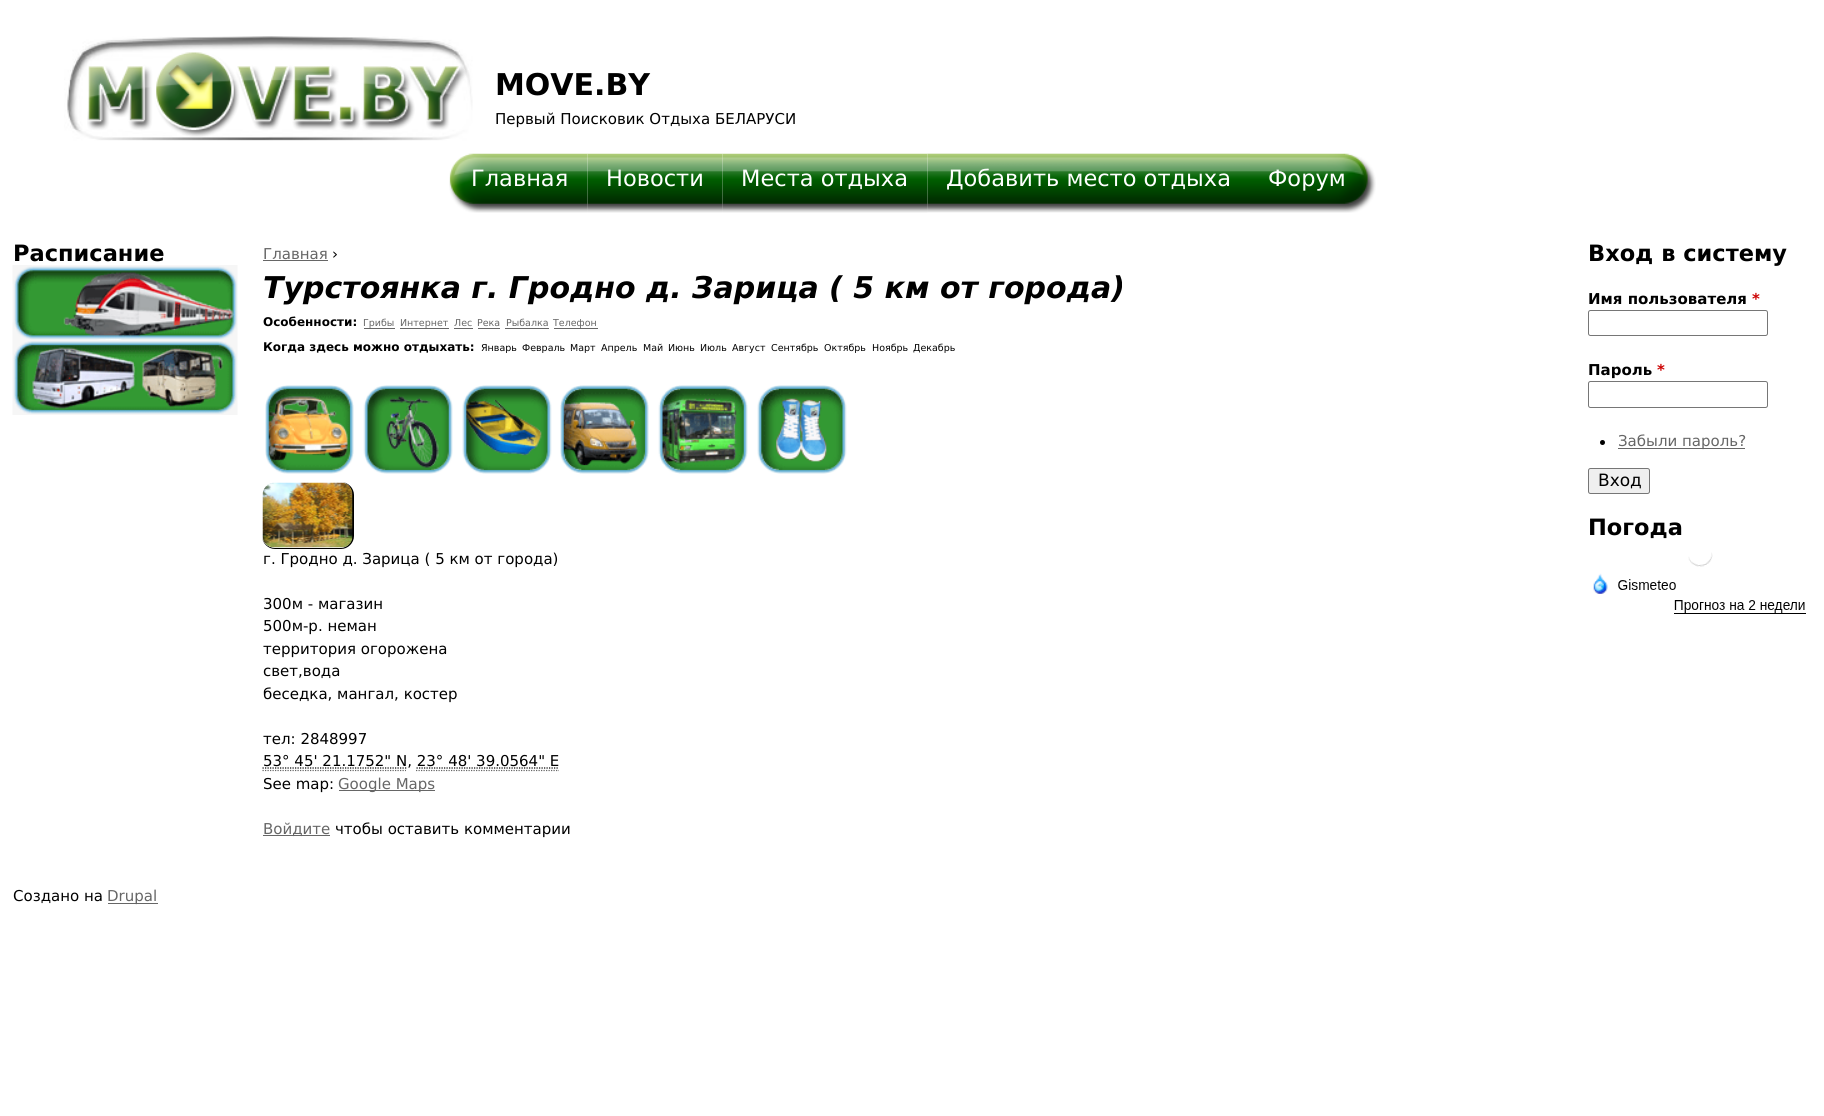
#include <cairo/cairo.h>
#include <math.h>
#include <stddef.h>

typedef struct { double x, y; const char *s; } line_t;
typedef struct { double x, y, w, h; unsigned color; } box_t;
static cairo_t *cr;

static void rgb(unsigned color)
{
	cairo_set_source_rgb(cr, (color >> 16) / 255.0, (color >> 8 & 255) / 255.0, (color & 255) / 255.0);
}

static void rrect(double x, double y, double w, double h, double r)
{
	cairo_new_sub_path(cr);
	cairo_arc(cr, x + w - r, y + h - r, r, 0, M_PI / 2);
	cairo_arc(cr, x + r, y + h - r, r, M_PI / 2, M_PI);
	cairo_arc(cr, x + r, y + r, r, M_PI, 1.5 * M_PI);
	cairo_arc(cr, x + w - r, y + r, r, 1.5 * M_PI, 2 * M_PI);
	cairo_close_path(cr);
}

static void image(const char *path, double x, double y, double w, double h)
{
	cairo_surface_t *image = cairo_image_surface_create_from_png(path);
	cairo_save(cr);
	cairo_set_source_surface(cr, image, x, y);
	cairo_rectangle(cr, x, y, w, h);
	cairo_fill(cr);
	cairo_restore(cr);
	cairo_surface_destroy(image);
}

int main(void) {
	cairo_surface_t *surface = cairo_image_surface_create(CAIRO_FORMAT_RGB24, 1824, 1116);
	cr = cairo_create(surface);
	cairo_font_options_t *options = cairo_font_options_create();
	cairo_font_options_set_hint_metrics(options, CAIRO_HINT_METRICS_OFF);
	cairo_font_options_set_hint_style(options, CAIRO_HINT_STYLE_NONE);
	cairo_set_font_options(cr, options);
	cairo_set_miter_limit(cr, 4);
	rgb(0xffffff);
	cairo_paint(cr);
	image("img/1.png", 64, 36, 409, 105);
	image("img/2.png", 87, 52, 380, 85);
	image("img/3.png", 449, 153, 139, 60);
	image("img/4.png", 587, 153, 136, 60);
	image("img/5.png", 722, 153, 206, 60);
	image("img/6.png", 927, 153, 323, 60);
	image("img/7.png", 1250, 153, 126, 60);
	image("img/8.png", 12, 265, 226, 75);
	image("img/9.png", 12, 340, 226, 75);
	{
		static const box_t items[] = {
			{263, 260, 65, 1, 0x666666},
			{364, 328, 31, 1, 0x666666},
			{400, 328, 49, 1, 0x666666},
			{454, 328, 19, 1, 0x666666},
			{478, 328, 22, 1, 0x666666},
			{505, 328, 44, 1, 0x666666},
			{554, 328, 44, 1, 0x666666},
		};
		for (size_t i = 0; i < sizeof items / sizeof *items; i++) {
			rgb(items[i].color);
			cairo_rectangle(cr, items[i].x, items[i].y, items[i].w, items[i].h);
			cairo_fill(cr);
		}
	}
	image("img/10.png", 265, 385, 89, 89);
	image("img/11.png", 363, 385, 90, 89);
	image("img/12.png", 462, 385, 90, 89);
	image("img/13.png", 560, 385, 89, 89);
	image("img/14.png", 658, 385, 90, 89);
	image("img/15.png", 757, 385, 90, 89);
	rgb(0x000000);
	cairo_set_fill_rule(cr, CAIRO_FILL_RULE_EVEN_ODD);
	cairo_new_path(cr);
	cairo_move_to(cr, 275, 482);
	cairo_line_to(cr, 341, 482);
	cairo_curve_to(cr, 348, 482, 354, 488, 354, 495);
	cairo_line_to(cr, 354, 536);
	cairo_curve_to(cr, 354, 543, 348, 549, 341, 549);
	cairo_line_to(cr, 275, 549);
	cairo_curve_to(cr, 268, 549, 262, 543, 262, 536);
	cairo_line_to(cr, 262, 495);
	cairo_curve_to(cr, 262, 488, 268, 482, 275, 482);
	cairo_close_path(cr);
	cairo_move_to(cr, 275, 482);
	cairo_line_to(cr, 341, 482);
	cairo_curve_to(cr, 347, 482, 352, 488, 352, 495);
	cairo_line_to(cr, 352, 536);
	cairo_curve_to(cr, 352, 542, 347, 548, 341, 548);
	cairo_line_to(cr, 275, 548);
	cairo_curve_to(cr, 268, 548, 262, 542, 262, 536);
	cairo_line_to(cr, 262, 495);
	cairo_curve_to(cr, 262, 488, 268, 482, 275, 482);
	cairo_close_path(cr);
	cairo_fill(cr);
	image("img/16.png", 262, 482, 91, 66);
	cairo_new_path(cr);
	cairo_move_to(cr, 262.5, 770.5);
	cairo_line_to(cr, 406, 770.5);
	rgb(0x666666);
	cairo_set_line_width(cr, 1.2);
	cairo_set_dash(cr, (double[]){1.25, 1.25}, 2, 0);
	cairo_stroke(cr);
	cairo_new_path(cr);
	cairo_move_to(cr, 262.5, 768);
	cairo_line_to(cr, 407, 768);
	rgb(0x000000);
	cairo_stroke(cr);
	cairo_new_path(cr);
	cairo_move_to(cr, 416, 770.5);
	cairo_line_to(cr, 559, 770.5);
	rgb(0x666666);
	cairo_stroke(cr);
	cairo_new_path(cr);
	cairo_move_to(cr, 416.5, 768);
	cairo_line_to(cr, 559, 768);
	rgb(0x000000);
	cairo_stroke(cr);
	rgb(0x666666);
	cairo_rectangle(cr, 339, 790, 96, 1);
	cairo_fill(cr);
	cairo_rectangle(cr, 263, 835, 67, 1);
	cairo_fill(cr);
	rrect(1588.5, 310.5, 179, 25, 2);
	rgb(0x767676);
	cairo_set_line_width(cr, 1);
	cairo_set_dash(cr, NULL, 0, 0);
	cairo_stroke(cr);
	rrect(1588.5, 381.5, 179, 26, 2);
	cairo_stroke(cr);
	rgb(0x000000);
	cairo_arc(cr, 1602.5, 442.5, 2.5, 0, 2 * M_PI);
	cairo_fill(cr);
	rgb(0x666666);
	cairo_rectangle(cr, 1618, 448, 127, 1);
	cairo_fill(cr);
	rgb(0xefefef);
	rrect(1588.5, 468.5, 61, 25, 2);
	cairo_fill_preserve(cr);
	rgb(0x767676);
	cairo_stroke(cr);
	image("img/17.png", 1688, 552, 25, 15);
	image("img/18.png", 1593, 573, 15, 21);
	image("img/19.png", 1618, 579, 58, 11);
	image("img/20.png", 1674, 600, 131, 13);
	rgb(0x000000);
	cairo_rectangle(cr, 1674, 613, 132, 1);
	cairo_fill(cr);
	rgb(0x666666);
	cairo_rectangle(cr, 108, 903, 50, 1);
	cairo_fill(cr);
	cairo_select_font_face(cr, "DejaVu Sans", CAIRO_FONT_SLANT_NORMAL, CAIRO_FONT_WEIGHT_BOLD);
	cairo_set_font_size(cr, 30);
	rgb(0x000000);
	cairo_move_to(cr, 495, 95);
	cairo_show_text(cr, "MOVE.BY");
	cairo_select_font_face(cr, "DejaVu Sans", CAIRO_FONT_SLANT_NORMAL, CAIRO_FONT_WEIGHT_NORMAL);
	cairo_set_font_size(cr, 15);
	cairo_move_to(cr, 495, 124);
	cairo_show_text(cr, "Первый Поисковик Отдыха БЕЛАРУСИ");
	cairo_set_font_size(cr, 22.5);
	rgb(0xffffff);
	{
		static const line_t items[] = {
			{471, 186, "Главная"},
			{606, 186, "Новости"},
			{741, 186, "Места отдыха"},
			{946, 186, "Добавить место отдыха"},
			{1268, 186, "Форум"},
		};
		for (size_t i = 0; i < sizeof items / sizeof *items; i++) {
			cairo_move_to(cr, items[i].x, items[i].y);
			cairo_show_text(cr, items[i].s);
		}
	}
	cairo_select_font_face(cr, "DejaVu Sans", CAIRO_FONT_SLANT_NORMAL, CAIRO_FONT_WEIGHT_BOLD);
	rgb(0x000000);
	cairo_move_to(cr, 13, 261);
	cairo_show_text(cr, "Расписание");
	cairo_select_font_face(cr, "DejaVu Sans", CAIRO_FONT_SLANT_NORMAL, CAIRO_FONT_WEIGHT_NORMAL);
	cairo_set_font_size(cr, 15);
	rgb(0x666666);
	cairo_move_to(cr, 263, 259);
	cairo_show_text(cr, "Главная");
	rgb(0x000000);
	cairo_move_to(cr, 332, 259);
	cairo_show_text(cr, "›");
	cairo_select_font_face(cr, "DejaVu Sans", CAIRO_FONT_SLANT_ITALIC, CAIRO_FONT_WEIGHT_BOLD);
	cairo_set_font_size(cr, 30);
	cairo_move_to(cr, 263, 298);
	cairo_show_text(cr, "Турстоянка г. Гродно д. Зарица ( 5 км от города)");
	cairo_select_font_face(cr, "DejaVu Sans", CAIRO_FONT_SLANT_NORMAL, CAIRO_FONT_WEIGHT_BOLD);
	cairo_set_font_size(cr, 12);
	cairo_move_to(cr, 263, 326);
	cairo_show_text(cr, "Особенности:");
	cairo_select_font_face(cr, "DejaVu Sans", CAIRO_FONT_SLANT_NORMAL, CAIRO_FONT_WEIGHT_NORMAL);
	cairo_set_font_size(cr, 9.5);
	rgb(0x666666);
	{
		static const line_t items[] = {
			{363, 326, "Грибы"},
			{400, 326, "Интернет"},
			{454, 326, "Лес"},
			{477, 326, "Река"},
			{506, 326, "Рыбалка"},
			{553, 326, "Телефон"},
		};
		for (size_t i = 0; i < sizeof items / sizeof *items; i++) {
			cairo_move_to(cr, items[i].x, items[i].y);
			cairo_show_text(cr, items[i].s);
		}
	}
	cairo_select_font_face(cr, "DejaVu Sans", CAIRO_FONT_SLANT_NORMAL, CAIRO_FONT_WEIGHT_BOLD);
	cairo_set_font_size(cr, 12);
	rgb(0x000000);
	cairo_move_to(cr, 263, 351);
	cairo_show_text(cr, "Когда здесь можно отдыхать:");
	cairo_select_font_face(cr, "DejaVu Sans", CAIRO_FONT_SLANT_NORMAL, CAIRO_FONT_WEIGHT_NORMAL);
	cairo_set_font_size(cr, 9.5);
	{
		static const line_t items[] = {
			{481, 351, "Январь"},
			{522, 351, "Февраль"},
			{570, 351, "Март"},
			{601, 351, "Апрель"},
			{643, 351, "Май"},
			{668, 351, "Июнь"},
			{700, 351, "Июль"},
			{732, 351, "Август"},
			{771, 351, "Сентябрь"},
			{824, 351, "Октябрь"},
			{872, 351, "Ноябрь"},
			{913, 351, "Декабрь"},
		};
		for (size_t i = 0; i < sizeof items / sizeof *items; i++) {
			cairo_move_to(cr, items[i].x, items[i].y);
			cairo_show_text(cr, items[i].s);
		}
	}
	cairo_set_font_size(cr, 15);
	{
		static const line_t items[] = {
			{263, 564, "г. Гродно д. Зарица ( 5 км от города)"},
			{263, 609, "300м - магазин"},
			{263, 631, "500м-р. неман"},
			{263, 654, "территория огорожена"},
			{263, 676, "свет,вода"},
			{263, 699, "беседка, мангал, костер"},
			{263, 744, "тел: 2848997"},
			{263, 766, "53° 45' 21.1752\" N, 23° 48' 39.0564\" E"},
			{263, 789, "See map:"},
		};
		for (size_t i = 0; i < sizeof items / sizeof *items; i++) {
			cairo_move_to(cr, items[i].x, items[i].y);
			cairo_show_text(cr, items[i].s);
		}
	}
	rgb(0x666666);
	cairo_move_to(cr, 338, 789);
	cairo_show_text(cr, "Google Maps");
	cairo_move_to(cr, 263, 834);
	cairo_show_text(cr, "Войдите");
	rgb(0x000000);
	cairo_move_to(cr, 335, 834);
	cairo_show_text(cr, "чтобы оставить комментарии");
	cairo_select_font_face(cr, "DejaVu Sans", CAIRO_FONT_SLANT_NORMAL, CAIRO_FONT_WEIGHT_BOLD);
	cairo_set_font_size(cr, 22.5);
	cairo_move_to(cr, 1588, 261);
	cairo_show_text(cr, "Вход в систему");
	cairo_set_font_size(cr, 15);
	cairo_move_to(cr, 1588, 304);
	cairo_show_text(cr, "Имя пользователя");
	rgb(0xcc0000);
	cairo_move_to(cr, 1752, 304);
	cairo_show_text(cr, "*");
	rgb(0x000000);
	cairo_move_to(cr, 1588, 375);
	cairo_show_text(cr, "Пароль");
	rgb(0xcc0000);
	cairo_move_to(cr, 1657, 375);
	cairo_show_text(cr, "*");
	cairo_select_font_face(cr, "DejaVu Sans", CAIRO_FONT_SLANT_NORMAL, CAIRO_FONT_WEIGHT_NORMAL);
	rgb(0x666666);
	cairo_move_to(cr, 1618, 446);
	cairo_show_text(cr, "Забыли пароль?");
	cairo_set_font_size(cr, 17);
	rgb(0x000000);
	cairo_move_to(cr, 1598, 486);
	cairo_show_text(cr, "Вход");
	cairo_select_font_face(cr, "DejaVu Sans", CAIRO_FONT_SLANT_NORMAL, CAIRO_FONT_WEIGHT_BOLD);
	cairo_set_font_size(cr, 22.5);
	cairo_move_to(cr, 1588, 535);
	cairo_show_text(cr, "Погода");
	cairo_select_font_face(cr, "DejaVu Sans", CAIRO_FONT_SLANT_NORMAL, CAIRO_FONT_WEIGHT_NORMAL);
	cairo_set_font_size(cr, 15);
	cairo_move_to(cr, 13, 901);
	cairo_show_text(cr, "Создано на");
	rgb(0x666666);
	cairo_move_to(cr, 107, 901);
	cairo_show_text(cr, "Drupal");
	cairo_surface_write_to_png(surface, "page.png");
	cairo_font_options_destroy(options);
	cairo_destroy(cr);
	cairo_surface_destroy(surface);
	return 0;
}
